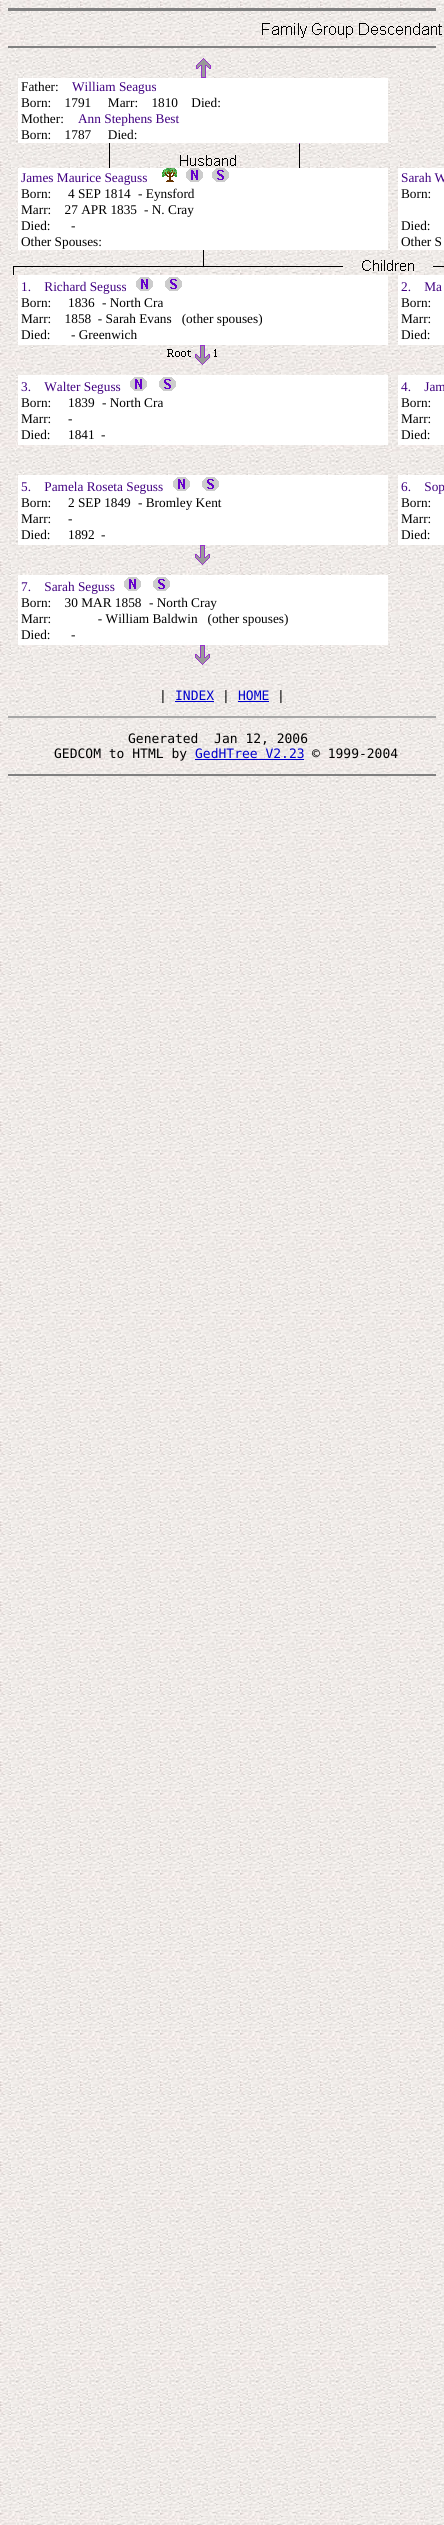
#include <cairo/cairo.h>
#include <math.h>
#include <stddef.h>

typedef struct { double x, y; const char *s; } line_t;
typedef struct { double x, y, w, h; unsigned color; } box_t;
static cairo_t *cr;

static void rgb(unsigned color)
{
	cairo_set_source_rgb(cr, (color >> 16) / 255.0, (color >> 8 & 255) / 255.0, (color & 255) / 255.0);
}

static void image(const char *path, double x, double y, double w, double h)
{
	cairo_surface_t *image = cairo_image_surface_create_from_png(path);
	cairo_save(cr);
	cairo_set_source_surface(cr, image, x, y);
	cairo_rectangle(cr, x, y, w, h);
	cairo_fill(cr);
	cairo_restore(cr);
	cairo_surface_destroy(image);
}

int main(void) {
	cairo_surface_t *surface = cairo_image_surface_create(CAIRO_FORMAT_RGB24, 444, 2525);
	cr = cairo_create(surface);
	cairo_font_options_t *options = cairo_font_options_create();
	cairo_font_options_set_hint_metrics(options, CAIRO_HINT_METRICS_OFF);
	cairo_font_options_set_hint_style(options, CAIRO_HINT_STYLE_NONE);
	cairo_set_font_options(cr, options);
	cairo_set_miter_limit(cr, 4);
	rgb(0xffffff);
	cairo_paint(cr);
	image("img/1.png", 0, 0, 444, 2525);
	rgb(0x808080);
	cairo_rectangle(cr, 8, 8, 428, 3);
	cairo_fill(cr);
	image("img/2.png", 262, 23, 180, 15);
	cairo_rectangle(cr, 8, 46, 428, 2);
	cairo_fill(cr);
	image("img/3.png", 196, 58, 15, 20);
	rgb(0xffffff);
	cairo_rectangle(cr, 18, 78, 370, 65);
	cairo_fill(cr);
	image("img/4.png", 109, 143, 191, 25);
	cairo_rectangle(cr, 18, 168, 370, 82);
	cairo_fill(cr);
	image("img/5.png", 162, 168, 15, 14);
	image("img/6.png", 186, 168, 17, 14);
	image("img/7.png", 212, 168, 17, 14);
	cairo_rectangle(cr, 398, 168, 46, 82);
	cairo_fill(cr);
	image("img/8.png", 13, 250, 431, 25);
	cairo_rectangle(cr, 18, 275, 370, 70);
	cairo_fill(cr);
	image("img/6.png", 136, 277, 17, 14);
	image("img/7.png", 165, 277, 17, 14);
	cairo_rectangle(cr, 398, 275, 46, 70);
	cairo_fill(cr);
	image("img/9.png", 167, 345, 50, 20);
	cairo_rectangle(cr, 18, 375, 370, 70);
	cairo_fill(cr);
	image("img/6.png", 130, 377, 17, 14);
	image("img/7.png", 159, 377, 17, 14);
	cairo_rectangle(cr, 398, 375, 46, 70);
	cairo_fill(cr);
	cairo_rectangle(cr, 18, 475, 370, 70);
	cairo_fill(cr);
	image("img/6.png", 173, 477, 17, 14);
	image("img/7.png", 202, 477, 17, 14);
	cairo_rectangle(cr, 398, 475, 46, 70);
	cairo_fill(cr);
	image("img/10.png", 195, 545, 15, 20);
	cairo_rectangle(cr, 18, 575, 370, 70);
	cairo_fill(cr);
	image("img/6.png", 124, 577, 17, 14);
	image("img/7.png", 153, 577, 17, 14);
	image("img/11.png", 195, 645, 15, 20);
	{
		static const box_t items[] = {
			{175, 701, 39, 1, 0x0000cc},
			{238, 701, 31, 1, 0x0000cc},
			{8, 716, 428, 2, 0xa6a6a6},
			{195, 759, 109, 1, 0x0000cc},
			{8, 774, 428, 2, 0x808080},
		};
		for (size_t i = 0; i < sizeof items / sizeof *items; i++) {
			rgb(items[i].color);
			cairo_rectangle(cr, items[i].x, items[i].y, items[i].w, items[i].h);
			cairo_fill(cr);
		}
	}
	cairo_select_font_face(cr, "Liberation Serif", CAIRO_FONT_SLANT_NORMAL, CAIRO_FONT_WEIGHT_NORMAL);
	cairo_set_font_size(cr, 13.3);
	rgb(0x000000);
	cairo_move_to(cr, 21, 91);
	cairo_show_text(cr, "Father:");
	rgb(0x400080);
	cairo_move_to(cr, 72, 91);
	cairo_show_text(cr, "William Seagus");
	rgb(0x000000);
	cairo_move_to(cr, 21, 107);
	cairo_show_text(cr, "Born:    1791     Marr:    1810    Died:");
	cairo_move_to(cr, 21, 123);
	cairo_show_text(cr, "Mother:");
	rgb(0x400080);
	cairo_move_to(cr, 78, 123);
	cairo_show_text(cr, "Ann Stephens Best");
	rgb(0x000000);
	cairo_move_to(cr, 21, 139);
	cairo_show_text(cr, "Born:    1787     Died:");
	rgb(0x400080);
	cairo_move_to(cr, 21, 182);
	cairo_show_text(cr, "James Maurice Seaguss");
	rgb(0x000000);
	{
		static const line_t items[] = {
			{21, 198, "Born:     4 SEP 1814"},
			{138, 198, "- Eynsford"},
			{21, 214, "Marr:    27 APR 1835"},
			{144, 214, "- N. Cray"},
			{21, 230, "Died:"},
			{71, 230, "-"},
			{21, 246, "Other Spouses:"},
		};
		for (size_t i = 0; i < sizeof items / sizeof *items; i++) {
			cairo_move_to(cr, items[i].x, items[i].y);
			cairo_show_text(cr, items[i].s);
		}
	}
	rgb(0x400080);
	cairo_move_to(cr, 401, 182);
	cairo_show_text(cr, "Sarah W");
	rgb(0x000000);
	{
		static const line_t items[] = {
			{401, 198, "Born:"},
			{401, 230, "Died:"},
			{401, 246, "Other S"},
		};
		for (size_t i = 0; i < sizeof items / sizeof *items; i++) {
			cairo_move_to(cr, items[i].x, items[i].y);
			cairo_show_text(cr, items[i].s);
		}
	}
	rgb(0x400080);
	cairo_move_to(cr, 21, 291);
	cairo_show_text(cr, "1.    Richard Seguss");
	rgb(0x000000);
	{
		static const line_t items[] = {
			{21, 307, "Born:"},
			{68, 307, "1836"},
			{102, 307, "- North Cra"},
			{21, 323, "Marr:    1858  - Sarah Evans   (other spouses)"},
			{21, 339, "Died:"},
			{71, 339, "- Greenwich"},
		};
		for (size_t i = 0; i < sizeof items / sizeof *items; i++) {
			cairo_move_to(cr, items[i].x, items[i].y);
			cairo_show_text(cr, items[i].s);
		}
	}
	rgb(0x400080);
	cairo_move_to(cr, 401, 291);
	cairo_show_text(cr, "2.    Ma");
	rgb(0x000000);
	{
		static const line_t items[] = {
			{401, 307, "Born:"},
			{401, 323, "Marr:"},
			{401, 339, "Died:"},
		};
		for (size_t i = 0; i < sizeof items / sizeof *items; i++) {
			cairo_move_to(cr, items[i].x, items[i].y);
			cairo_show_text(cr, items[i].s);
		}
	}
	rgb(0x400080);
	cairo_move_to(cr, 21, 391);
	cairo_show_text(cr, "3.    Walter Seguss");
	rgb(0x000000);
	{
		static const line_t items[] = {
			{21, 407, "Born:"},
			{68, 407, "1839"},
			{102, 407, "- North Cra"},
			{21, 423, "Marr:     -"},
			{21, 439, "Died:"},
			{68, 439, "1841"},
			{101, 439, "-"},
		};
		for (size_t i = 0; i < sizeof items / sizeof *items; i++) {
			cairo_move_to(cr, items[i].x, items[i].y);
			cairo_show_text(cr, items[i].s);
		}
	}
	rgb(0x400080);
	cairo_move_to(cr, 401, 391);
	cairo_show_text(cr, "4.    Jam");
	rgb(0x000000);
	{
		static const line_t items[] = {
			{401, 407, "Born:"},
			{401, 423, "Marr:"},
			{401, 439, "Died:"},
		};
		for (size_t i = 0; i < sizeof items / sizeof *items; i++) {
			cairo_move_to(cr, items[i].x, items[i].y);
			cairo_show_text(cr, items[i].s);
		}
	}
	rgb(0x400080);
	cairo_move_to(cr, 21, 491);
	cairo_show_text(cr, "5.    Pamela Roseta Seguss");
	rgb(0x000000);
	{
		static const line_t items[] = {
			{21, 507, "Born:     2 SEP 1849"},
			{138, 507, "- Bromley Kent"},
			{21, 523, "Marr:     -"},
			{21, 539, "Died:"},
			{68, 539, "1892"},
			{101, 539, "-"},
		};
		for (size_t i = 0; i < sizeof items / sizeof *items; i++) {
			cairo_move_to(cr, items[i].x, items[i].y);
			cairo_show_text(cr, items[i].s);
		}
	}
	rgb(0x400080);
	cairo_move_to(cr, 401, 491);
	cairo_show_text(cr, "6.    Sop");
	rgb(0x000000);
	{
		static const line_t items[] = {
			{401, 507, "Born:"},
			{401, 523, "Marr:"},
			{401, 539, "Died:"},
		};
		for (size_t i = 0; i < sizeof items / sizeof *items; i++) {
			cairo_move_to(cr, items[i].x, items[i].y);
			cairo_show_text(cr, items[i].s);
		}
	}
	rgb(0x400080);
	cairo_move_to(cr, 21, 591);
	cairo_show_text(cr, "7.    Sarah Seguss");
	rgb(0x000000);
	{
		static const line_t items[] = {
			{21, 607, "Born:    30 MAR 1858"},
			{149, 607, "- North Cray"},
			{21, 623, "Marr:              - William Baldwin   (other spouses)"},
			{21, 639, "Died:"},
			{71, 639, "-"},
		};
		for (size_t i = 0; i < sizeof items / sizeof *items; i++) {
			cairo_move_to(cr, items[i].x, items[i].y);
			cairo_show_text(cr, items[i].s);
		}
	}
	cairo_select_font_face(cr, "DejaVu Sans Mono", CAIRO_FONT_SLANT_NORMAL, CAIRO_FONT_WEIGHT_NORMAL);
	cairo_set_font_size(cr, 13);
	cairo_move_to(cr, 159, 700);
	cairo_show_text(cr, "|");
	rgb(0x0000cc);
	cairo_move_to(cr, 175, 700);
	cairo_show_text(cr, "INDEX");
	rgb(0x000000);
	cairo_move_to(cr, 222, 700);
	cairo_show_text(cr, "|");
	rgb(0x0000cc);
	cairo_move_to(cr, 238, 700);
	cairo_show_text(cr, "HOME");
	rgb(0x000000);
	{
		static const line_t items[] = {
			{277, 700, "|"},
			{128, 743, "Generated  Jan 12, 2006"},
			{54, 758, "GEDCOM to HTML by"},
		};
		for (size_t i = 0; i < sizeof items / sizeof *items; i++) {
			cairo_move_to(cr, items[i].x, items[i].y);
			cairo_show_text(cr, items[i].s);
		}
	}
	rgb(0x0000cc);
	cairo_move_to(cr, 195, 758);
	cairo_show_text(cr, "GedHTree V2.23");
	rgb(0x000000);
	cairo_move_to(cr, 312, 758);
	cairo_show_text(cr, "© 1999-2004");
	cairo_surface_write_to_png(surface, "page.png");
	cairo_font_options_destroy(options);
	cairo_destroy(cr);
	cairo_surface_destroy(surface);
	return 0;
}
